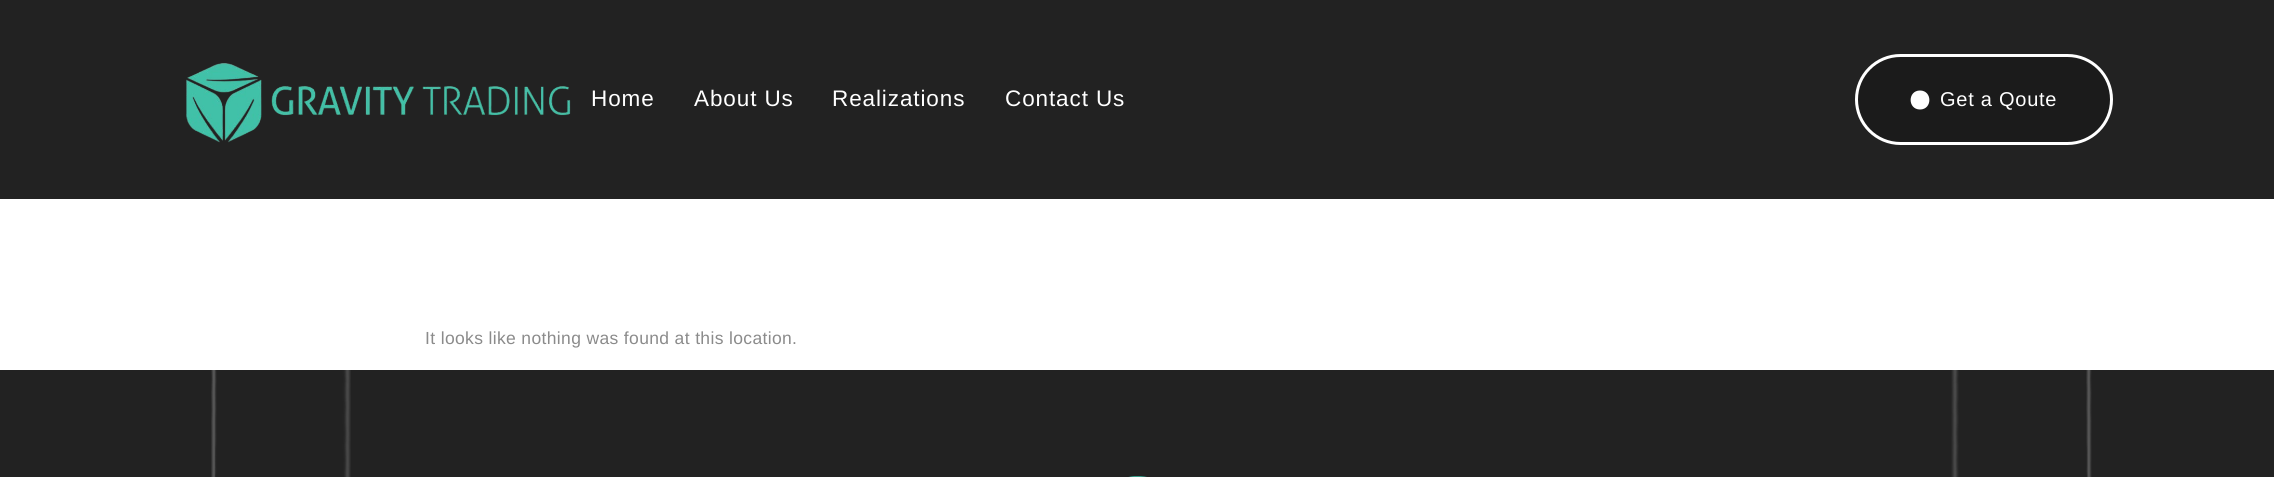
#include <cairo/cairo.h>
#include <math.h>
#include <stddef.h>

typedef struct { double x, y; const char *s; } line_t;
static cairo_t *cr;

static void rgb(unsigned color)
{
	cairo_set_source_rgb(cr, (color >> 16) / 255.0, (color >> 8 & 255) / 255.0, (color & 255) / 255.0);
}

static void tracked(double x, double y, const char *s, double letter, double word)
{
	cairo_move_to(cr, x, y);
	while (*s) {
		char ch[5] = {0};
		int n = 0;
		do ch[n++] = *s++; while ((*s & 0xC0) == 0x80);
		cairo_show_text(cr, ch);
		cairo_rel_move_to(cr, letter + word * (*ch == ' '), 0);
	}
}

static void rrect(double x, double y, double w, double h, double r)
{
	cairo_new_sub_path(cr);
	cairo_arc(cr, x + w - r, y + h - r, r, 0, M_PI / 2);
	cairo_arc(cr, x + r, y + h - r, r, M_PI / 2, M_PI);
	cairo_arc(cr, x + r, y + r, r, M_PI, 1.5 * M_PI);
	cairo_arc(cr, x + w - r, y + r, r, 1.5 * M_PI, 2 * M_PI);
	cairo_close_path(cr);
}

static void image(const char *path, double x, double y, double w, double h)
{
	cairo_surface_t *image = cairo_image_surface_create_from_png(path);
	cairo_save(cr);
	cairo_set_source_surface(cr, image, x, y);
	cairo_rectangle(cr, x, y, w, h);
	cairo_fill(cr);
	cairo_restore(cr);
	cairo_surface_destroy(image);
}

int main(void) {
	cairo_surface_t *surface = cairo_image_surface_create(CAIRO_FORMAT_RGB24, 2274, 477);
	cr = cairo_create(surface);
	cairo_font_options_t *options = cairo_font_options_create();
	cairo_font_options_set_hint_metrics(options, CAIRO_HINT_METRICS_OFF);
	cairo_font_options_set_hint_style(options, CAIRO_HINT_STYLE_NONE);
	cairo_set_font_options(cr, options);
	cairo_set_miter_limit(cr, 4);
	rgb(0xffffff);
	cairo_paint(cr);
	rgb(0x222222);
	cairo_rectangle(cr, 0, 0, 2274, 199);
	cairo_fill(cr);
	image("img/1.png", 186, 63, 385, 80);
	rgb(0x1b1b1b);
	rrect(1856.5, 55.5, 255, 88, 44);
	cairo_fill_preserve(cr);
	rgb(0xffffff);
	cairo_set_line_width(cr, 3);
	cairo_stroke(cr);
	cairo_new_path(cr);
	cairo_move_to(cr, 1920, 90.5);
	cairo_curve_to(cr, 1907.5, 90.5, 1907.5, 109.5, 1920, 109.5);
	cairo_curve_to(cr, 1932.5, 109.5, 1932.5, 90.5, 1920, 90.5);
	cairo_close_path(cr);
	cairo_fill(cr);
	rgb(0x222222);
	cairo_rectangle(cr, 0, 370, 2274, 107);
	cairo_fill(cr);
	image("img/2.png", 211, 370, 140, 107);
	image("img/3.png", 1128, 476, 19, 1);
	image("img/4.png", 1951, 370, 141, 107);
	cairo_select_font_face(cr, "Liberation Sans", CAIRO_FONT_SLANT_NORMAL, CAIRO_FONT_WEIGHT_NORMAL);
	cairo_set_font_size(cr, 22.5);
	rgb(0xffffff);
	{
		static const line_t items[] = {
			{591, 106, "Home"},
			{694, 106, "About Us"},
			{832, 106, "Realizations"},
			{1005, 106, "Contact Us"},
		};
		for (size_t i = 0; i < sizeof items / sizeof *items; i++) {
			tracked(items[i].x, items[i].y, items[i].s, 0.9, 0);
		}
	}
	cairo_set_font_size(cr, 20);
	tracked(1940, 106, "Get a Qoute", 0.75, 0);
	cairo_set_font_size(cr, 17.5);
	rgb(0x8b8b8b);
	tracked(425, 344, "It looks like nothing was found at this location.", 0.35, 0);
	cairo_surface_write_to_png(surface, "page.png");
	cairo_font_options_destroy(options);
	cairo_destroy(cr);
	cairo_surface_destroy(surface);
	return 0;
}
